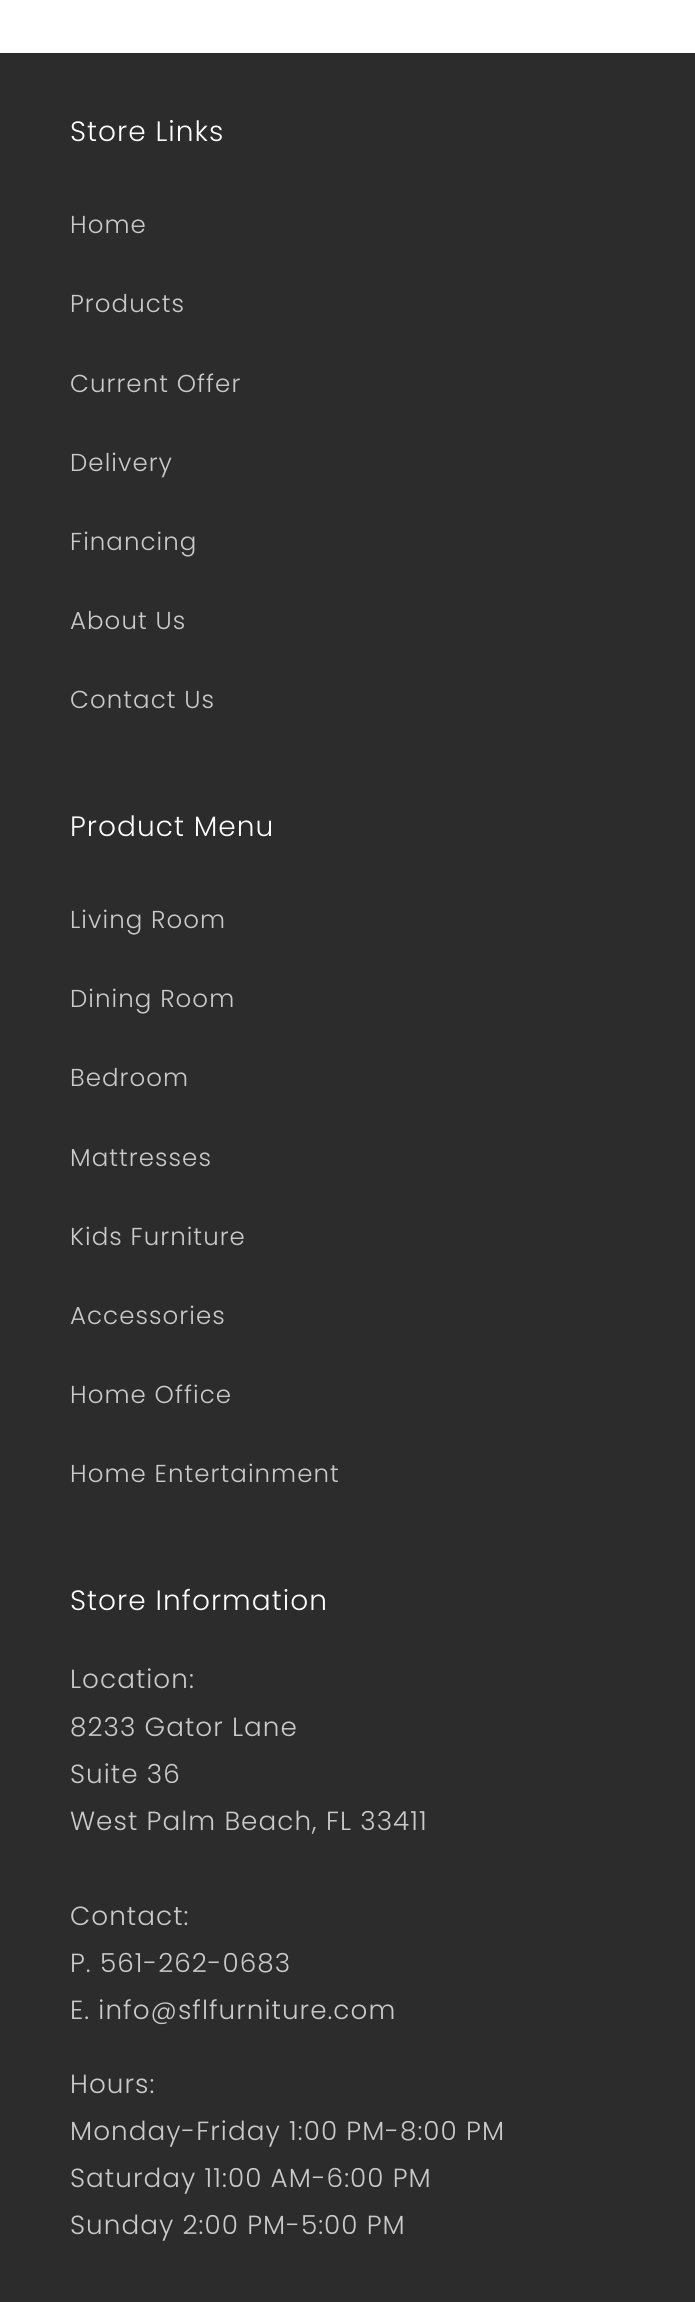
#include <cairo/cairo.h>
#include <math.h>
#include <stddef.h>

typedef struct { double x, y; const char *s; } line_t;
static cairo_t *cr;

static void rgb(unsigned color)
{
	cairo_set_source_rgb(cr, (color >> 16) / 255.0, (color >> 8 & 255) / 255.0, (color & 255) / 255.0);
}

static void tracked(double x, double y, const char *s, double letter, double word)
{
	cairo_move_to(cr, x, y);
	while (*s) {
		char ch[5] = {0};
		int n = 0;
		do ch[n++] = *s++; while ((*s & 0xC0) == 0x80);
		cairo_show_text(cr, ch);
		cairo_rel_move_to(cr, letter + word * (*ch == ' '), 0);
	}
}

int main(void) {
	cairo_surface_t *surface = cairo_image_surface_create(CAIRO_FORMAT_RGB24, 695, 2302);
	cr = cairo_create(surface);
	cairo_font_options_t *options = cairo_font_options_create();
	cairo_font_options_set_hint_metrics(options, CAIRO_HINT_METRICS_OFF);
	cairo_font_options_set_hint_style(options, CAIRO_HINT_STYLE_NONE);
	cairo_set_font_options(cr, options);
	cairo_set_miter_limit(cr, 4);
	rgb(0xffffff);
	cairo_paint(cr);
	rgb(0x2c2c2c);
	cairo_rectangle(cr, 0, 53, 695, 2249);
	cairo_fill(cr);
	cairo_select_font_face(cr, "Poppins Light", CAIRO_FONT_SLANT_NORMAL, CAIRO_FONT_WEIGHT_NORMAL);
	cairo_set_font_size(cr, 28);
	rgb(0xffffff);
	tracked(70, 141, "Store Links", 1.05, 0);
	cairo_set_font_size(cr, 24.5);
	rgb(0xcacaca);
	{
		static const line_t items[] = {
			{70, 233, "Home"},
			{70, 312, "Products"},
			{70, 392, "Current Offer"},
			{70, 471, "Delivery"},
			{70, 550, "Financing"},
			{70, 629, "About Us"},
			{70, 708, "Contact Us"},
		};
		for (size_t i = 0; i < sizeof items / sizeof *items; i++) {
			tracked(items[i].x, items[i].y, items[i].s, 1.05, 0);
		}
	}
	cairo_set_font_size(cr, 28);
	rgb(0xffffff);
	tracked(70, 836, "Product Menu", 1.05, 0);
	cairo_set_font_size(cr, 24.5);
	rgb(0xcacaca);
	{
		static const line_t items[] = {
			{70, 928, "Living Room"},
			{70, 1007, "Dining Room"},
			{70, 1086, "Bedroom"},
			{70, 1166, "Mattresses"},
			{70, 1245, "Kids Furniture"},
			{70, 1324, "Accessories"},
			{70, 1403, "Home Office"},
			{70, 1482, "Home Entertainment"},
		};
		for (size_t i = 0; i < sizeof items / sizeof *items; i++) {
			tracked(items[i].x, items[i].y, items[i].s, 1.05, 0);
		}
	}
	cairo_set_font_size(cr, 28);
	rgb(0xffffff);
	tracked(70, 1610, "Store Information", 1.05, 0);
	cairo_set_font_size(cr, 26.25);
	rgb(0xcacaca);
	{
		static const line_t items[] = {
			{70, 1688, "Location:"},
			{70, 1736, "8233 Gator Lane"},
			{70, 1783, "Suite 36"},
			{70, 1830, "West Palm Beach, FL 33411"},
			{70, 1925, "Contact:"},
			{70, 1972, "P. 561-262-0683"},
			{70, 2019, "E. info@sflfurniture.com"},
			{70, 2093, "Hours:"},
			{70, 2140, "Monday-Friday 1:00 PM-8:00 PM"},
			{70, 2187, "Saturday 11:00 AM-6:00 PM"},
			{70, 2234, "Sunday 2:00 PM-5:00 PM"},
		};
		for (size_t i = 0; i < sizeof items / sizeof *items; i++) {
			tracked(items[i].x, items[i].y, items[i].s, 1.05, 0);
		}
	}
	cairo_surface_write_to_png(surface, "page.png");
	cairo_font_options_destroy(options);
	cairo_destroy(cr);
	cairo_surface_destroy(surface);
	return 0;
}
